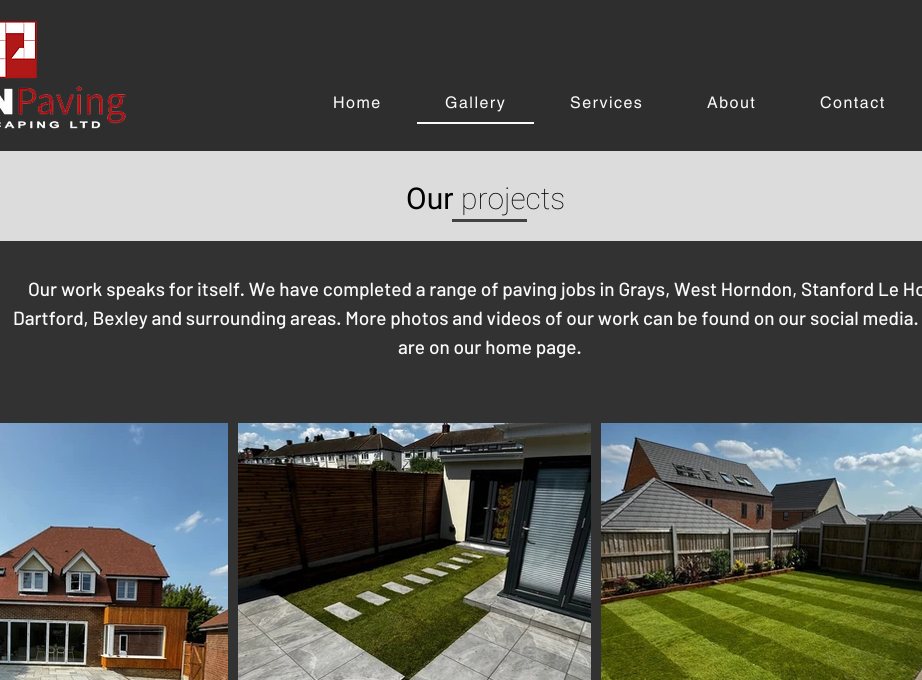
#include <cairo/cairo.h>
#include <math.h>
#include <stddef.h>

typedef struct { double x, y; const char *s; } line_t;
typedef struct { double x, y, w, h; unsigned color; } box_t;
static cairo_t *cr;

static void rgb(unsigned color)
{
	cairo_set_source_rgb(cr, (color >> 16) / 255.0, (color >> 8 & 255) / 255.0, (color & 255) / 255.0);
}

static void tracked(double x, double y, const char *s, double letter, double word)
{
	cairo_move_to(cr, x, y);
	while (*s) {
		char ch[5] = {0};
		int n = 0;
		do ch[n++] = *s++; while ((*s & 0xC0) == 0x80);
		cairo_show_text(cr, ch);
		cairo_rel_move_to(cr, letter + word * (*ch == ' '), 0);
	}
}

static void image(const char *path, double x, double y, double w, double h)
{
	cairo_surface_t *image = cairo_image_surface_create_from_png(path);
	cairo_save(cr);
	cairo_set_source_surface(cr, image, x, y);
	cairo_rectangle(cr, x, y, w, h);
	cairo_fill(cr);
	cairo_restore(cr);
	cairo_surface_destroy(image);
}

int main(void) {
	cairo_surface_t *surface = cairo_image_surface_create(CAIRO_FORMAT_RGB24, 922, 680);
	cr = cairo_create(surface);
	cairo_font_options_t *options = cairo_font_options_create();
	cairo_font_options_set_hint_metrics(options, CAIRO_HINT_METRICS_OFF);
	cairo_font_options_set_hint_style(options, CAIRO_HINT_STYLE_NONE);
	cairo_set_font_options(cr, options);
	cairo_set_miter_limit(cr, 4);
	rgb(0x2f2e2e);
	cairo_paint(cr);
	image("img/1.png", 0, 21, 126, 108);
	{
		static const box_t items[] = {
			{417, 122, 117, 2, 0xfafafa},
			{0, 151, 922, 90, 0xdcdcdc},
			{452, 219, 75, 3, 0x424242},
			{0, 241, 922, 439, 0x323232},
		};
		for (size_t i = 0; i < sizeof items / sizeof *items; i++) {
			rgb(items[i].color);
			cairo_rectangle(cr, items[i].x, items[i].y, items[i].w, items[i].h);
			cairo_fill(cr);
		}
	}
	image("img/2.png", 0, 423, 228, 257);
	image("img/3.png", 238, 423, 353, 257);
	image("img/4.png", 601, 423, 321, 257);
	cairo_select_font_face(cr, "helvetica", CAIRO_FONT_SLANT_NORMAL, CAIRO_FONT_WEIGHT_NORMAL);
	cairo_set_font_size(cr, 16);
	rgb(0xfafafa);
	{
		static const line_t items[] = {
			{333, 108, "Home"},
			{445, 108, "Gallery"},
			{570, 108, "Services"},
			{707, 108, "About"},
			{820, 108, "Contact"},
		};
		for (size_t i = 0; i < sizeof items / sizeof *items; i++) {
			tracked(items[i].x, items[i].y, items[i].s, 1.5, 0);
		}
	}
	cairo_select_font_face(cr, "Roboto", CAIRO_FONT_SLANT_NORMAL, CAIRO_FONT_WEIGHT_NORMAL);
	cairo_set_font_size(cr, 30);
	rgb(0x000000);
	cairo_move_to(cr, 406, 209);
	cairo_show_text(cr, "Our");
	cairo_select_font_face(cr, "Roboto Thin", CAIRO_FONT_SLANT_NORMAL, CAIRO_FONT_WEIGHT_NORMAL);
	cairo_move_to(cr, 461, 209);
	cairo_show_text(cr, "projects");
	cairo_select_font_face(cr, "Barlow Medium", CAIRO_FONT_SLANT_NORMAL, CAIRO_FONT_WEIGHT_NORMAL);
	cairo_set_font_size(cr, 19);
	rgb(0xfafafa);
	{
		static const line_t items[] = {
			{28, 296, "Our work speaks for itself. We have completed a range of paving jobs in Grays, West Horndon, Stanford Le Ho"},
			{13, 325, "Dartford, Bexley and surrounding areas. More photos and videos of our work can be found on our social media."},
			{398, 354, "are on our home page."},
		};
		for (size_t i = 0; i < sizeof items / sizeof *items; i++) {
			cairo_move_to(cr, items[i].x, items[i].y);
			cairo_show_text(cr, items[i].s);
		}
	}
	cairo_surface_write_to_png(surface, "page.png");
	cairo_font_options_destroy(options);
	cairo_destroy(cr);
	cairo_surface_destroy(surface);
	return 0;
}
